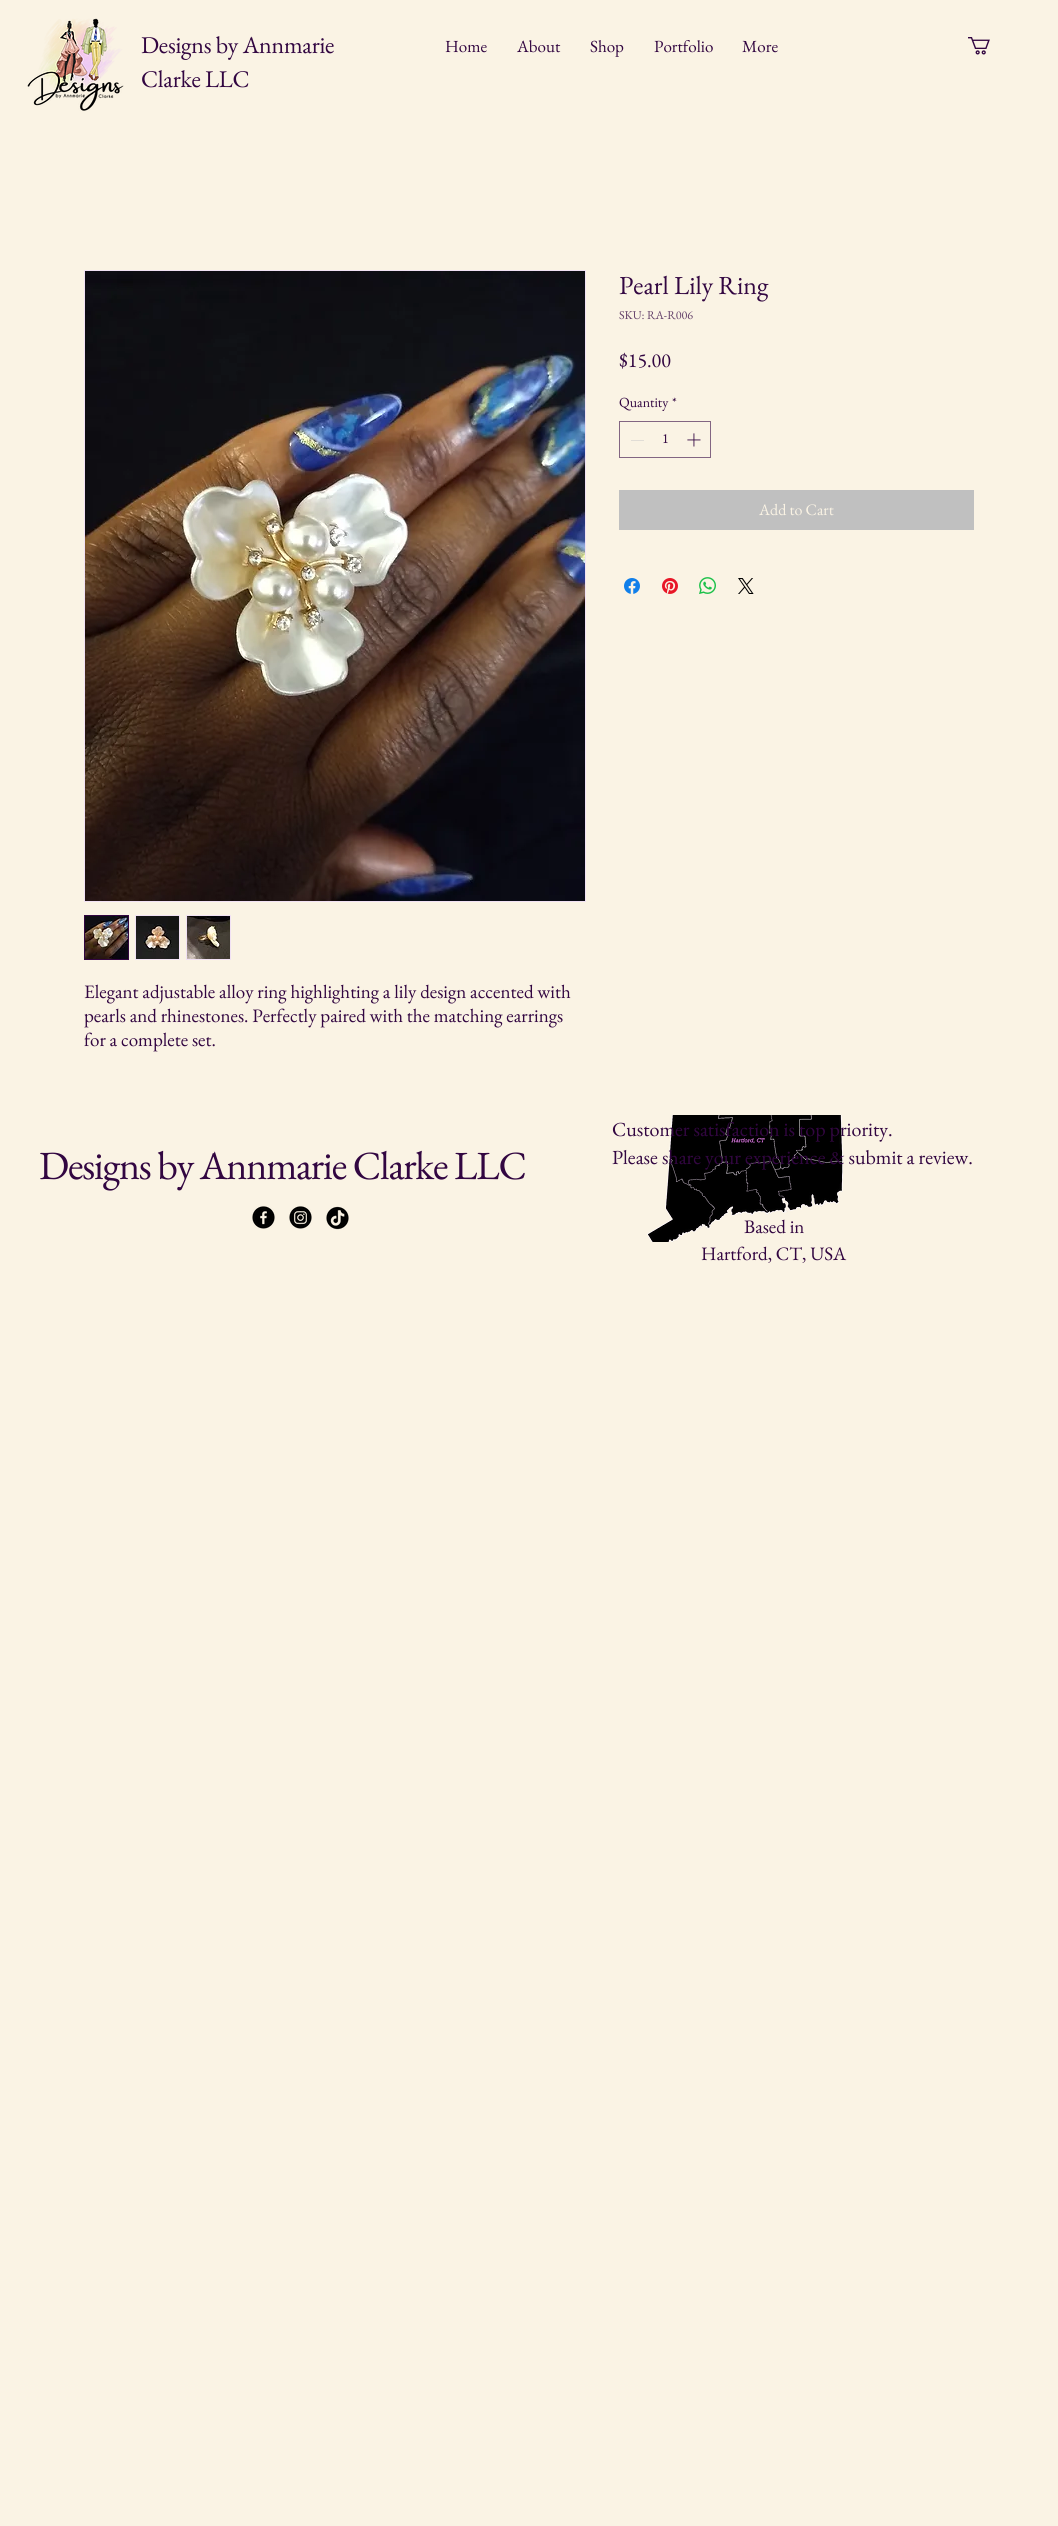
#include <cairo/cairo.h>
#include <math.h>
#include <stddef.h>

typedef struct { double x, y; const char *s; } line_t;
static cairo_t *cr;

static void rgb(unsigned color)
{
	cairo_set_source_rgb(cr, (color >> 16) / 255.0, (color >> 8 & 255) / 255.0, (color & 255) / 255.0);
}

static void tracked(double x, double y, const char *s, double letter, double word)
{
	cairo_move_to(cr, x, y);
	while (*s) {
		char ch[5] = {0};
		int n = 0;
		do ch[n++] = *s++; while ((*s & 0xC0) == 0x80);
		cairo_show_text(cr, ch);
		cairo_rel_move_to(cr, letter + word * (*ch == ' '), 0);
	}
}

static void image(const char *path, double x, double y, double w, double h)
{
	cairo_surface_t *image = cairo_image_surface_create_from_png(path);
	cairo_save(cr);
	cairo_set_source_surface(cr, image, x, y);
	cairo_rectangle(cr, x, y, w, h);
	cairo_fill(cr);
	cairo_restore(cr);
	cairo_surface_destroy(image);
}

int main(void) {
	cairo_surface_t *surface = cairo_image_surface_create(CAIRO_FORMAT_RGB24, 1058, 2526);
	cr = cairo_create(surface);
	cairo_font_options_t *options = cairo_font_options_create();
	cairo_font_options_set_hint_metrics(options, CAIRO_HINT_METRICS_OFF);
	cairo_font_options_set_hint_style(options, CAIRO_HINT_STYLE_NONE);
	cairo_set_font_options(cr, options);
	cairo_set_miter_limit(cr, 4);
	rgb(0xfaf3e4);
	cairo_paint(cr);
	image("img/1.png", 27, 18, 97, 93);
	image("img/2.png", 968, 37, 22, 18);
	cairo_rectangle(cr, 619.5, 421.5, 91, 36);
	rgb(0x826582);
	cairo_set_line_width(cr, 1);
	cairo_stroke(cr);
	rgb(0xe1ddd6);
	cairo_rectangle(cr, 631, 440, 13, 1);
	cairo_fill(cr);
	image("img/3.png", 687, 433, 14, 14);
	rgb(0xc0c0c0);
	cairo_rectangle(cr, 619, 490, 355, 40);
	cairo_fill(cr);
	image("img/4.png", 624, 578, 16, 16);
	image("img/5.png", 662, 578, 16, 16);
	image("img/6.png", 699, 577, 17, 17);
	image("img/7.png", 738, 578, 16, 16);
	cairo_rectangle(cr, 84.5, 270.5, 501, 631);
	rgb(0xf1e1f4);
	cairo_stroke(cr);
	image("img/8.png", 85, 271, 500, 630);
	cairo_rectangle(cr, 84.5, 915.5, 44, 44);
	rgb(0x320641);
	cairo_stroke(cr);
	image("img/9.png", 85, 916, 43, 43);
	rgb(0xf1e1f4);
	cairo_rectangle(cr, 135, 915, 45, 45);
	cairo_fill(cr);
	image("img/10.png", 136, 916, 43, 43);
	cairo_rectangle(cr, 186, 915, 45, 45);
	cairo_fill(cr);
	image("img/11.png", 187, 916, 43, 43);
	image("img/13.png", 252, 1206, 23, 23);
	image("img/14.png", 289, 1206, 23, 23);
	image("img/15.png", 326, 1206, 23, 24);
	cairo_select_font_face(cr, "EB Garamond", CAIRO_FONT_SLANT_NORMAL, CAIRO_FONT_WEIGHT_NORMAL);
	cairo_set_font_size(cr, 24);
	rgb(0x320641);
	tracked(141, 53, "Designs by Annmarie", -0.25, 0);
	tracked(141, 87, "Clarke LLC", -0.25, 0);
	cairo_set_font_size(cr, 17);
	{
		static const line_t items[] = {
			{445, 52, "Home"},
			{517, 52, "About"},
			{590, 52, "Shop"},
			{654, 52, "Portfolio"},
			{742, 52, "More"},
		};
		for (size_t i = 0; i < sizeof items / sizeof *items; i++) {
			cairo_move_to(cr, items[i].x, items[i].y);
			cairo_show_text(cr, items[i].s);
		}
	}
	cairo_set_font_size(cr, 26);
	cairo_move_to(cr, 619, 294);
	cairo_show_text(cr, "Pearl Lily Ring");
	cairo_set_font_size(cr, 12);
	rgb(0x64416a);
	cairo_move_to(cr, 619, 319);
	cairo_show_text(cr, "SKU: RA-R006");
	cairo_set_font_size(cr, 20);
	rgb(0x320641);
	cairo_move_to(cr, 619, 367);
	cairo_show_text(cr, "$15.00");
	cairo_set_font_size(cr, 14);
	{
		static const line_t items[] = {
			{619, 407, "Quantity"},
			{672, 407, "*"},
			{662, 443, "1"},
		};
		for (size_t i = 0; i < sizeof items / sizeof *items; i++) {
			cairo_move_to(cr, items[i].x, items[i].y);
			cairo_show_text(cr, items[i].s);
		}
	}
	cairo_set_font_size(cr, 16);
	rgb(0xfaf3e4);
	cairo_move_to(cr, 759, 515);
	cairo_show_text(cr, "Add to Cart");
	cairo_set_font_size(cr, 19);
	rgb(0x320641);
	{
		static const line_t items[] = {
			{84, 998, "Elegant adjustable alloy ring highlighting a lily design accented with"},
			{84, 1022, "pearls and rhinestones. Perfectly paired with the matching earrings"},
			{84, 1046, "for a complete set."},
		};
		for (size_t i = 0; i < sizeof items / sizeof *items; i++) {
			cairo_move_to(cr, items[i].x, items[i].y);
			cairo_show_text(cr, items[i].s);
		}
	}
	cairo_set_font_size(cr, 40);
	tracked(39, 1179, "Designs by Annmarie Clarke LLC", -1.2, 0);
	cairo_set_font_size(cr, 19);
	cairo_move_to(cr, 744, 1233);
	cairo_show_text(cr, "Based in");
	image("img/12.png", 647, 1115, 196, 127);
	cairo_set_font_size(cr, 20);
	cairo_move_to(cr, 612, 1164);
	cairo_show_text(cr, "Please share your experience & submit a review.");
	cairo_move_to(cr, 612, 1136);
	cairo_show_text(cr, "Customer satisfaction is top priority.");
	cairo_set_font_size(cr, 19);
	cairo_move_to(cr, 701, 1260);
	cairo_show_text(cr, "Hartford, CT, USA");
	cairo_surface_write_to_png(surface, "page.png");
	cairo_font_options_destroy(options);
	cairo_destroy(cr);
	cairo_surface_destroy(surface);
	return 0;
}
